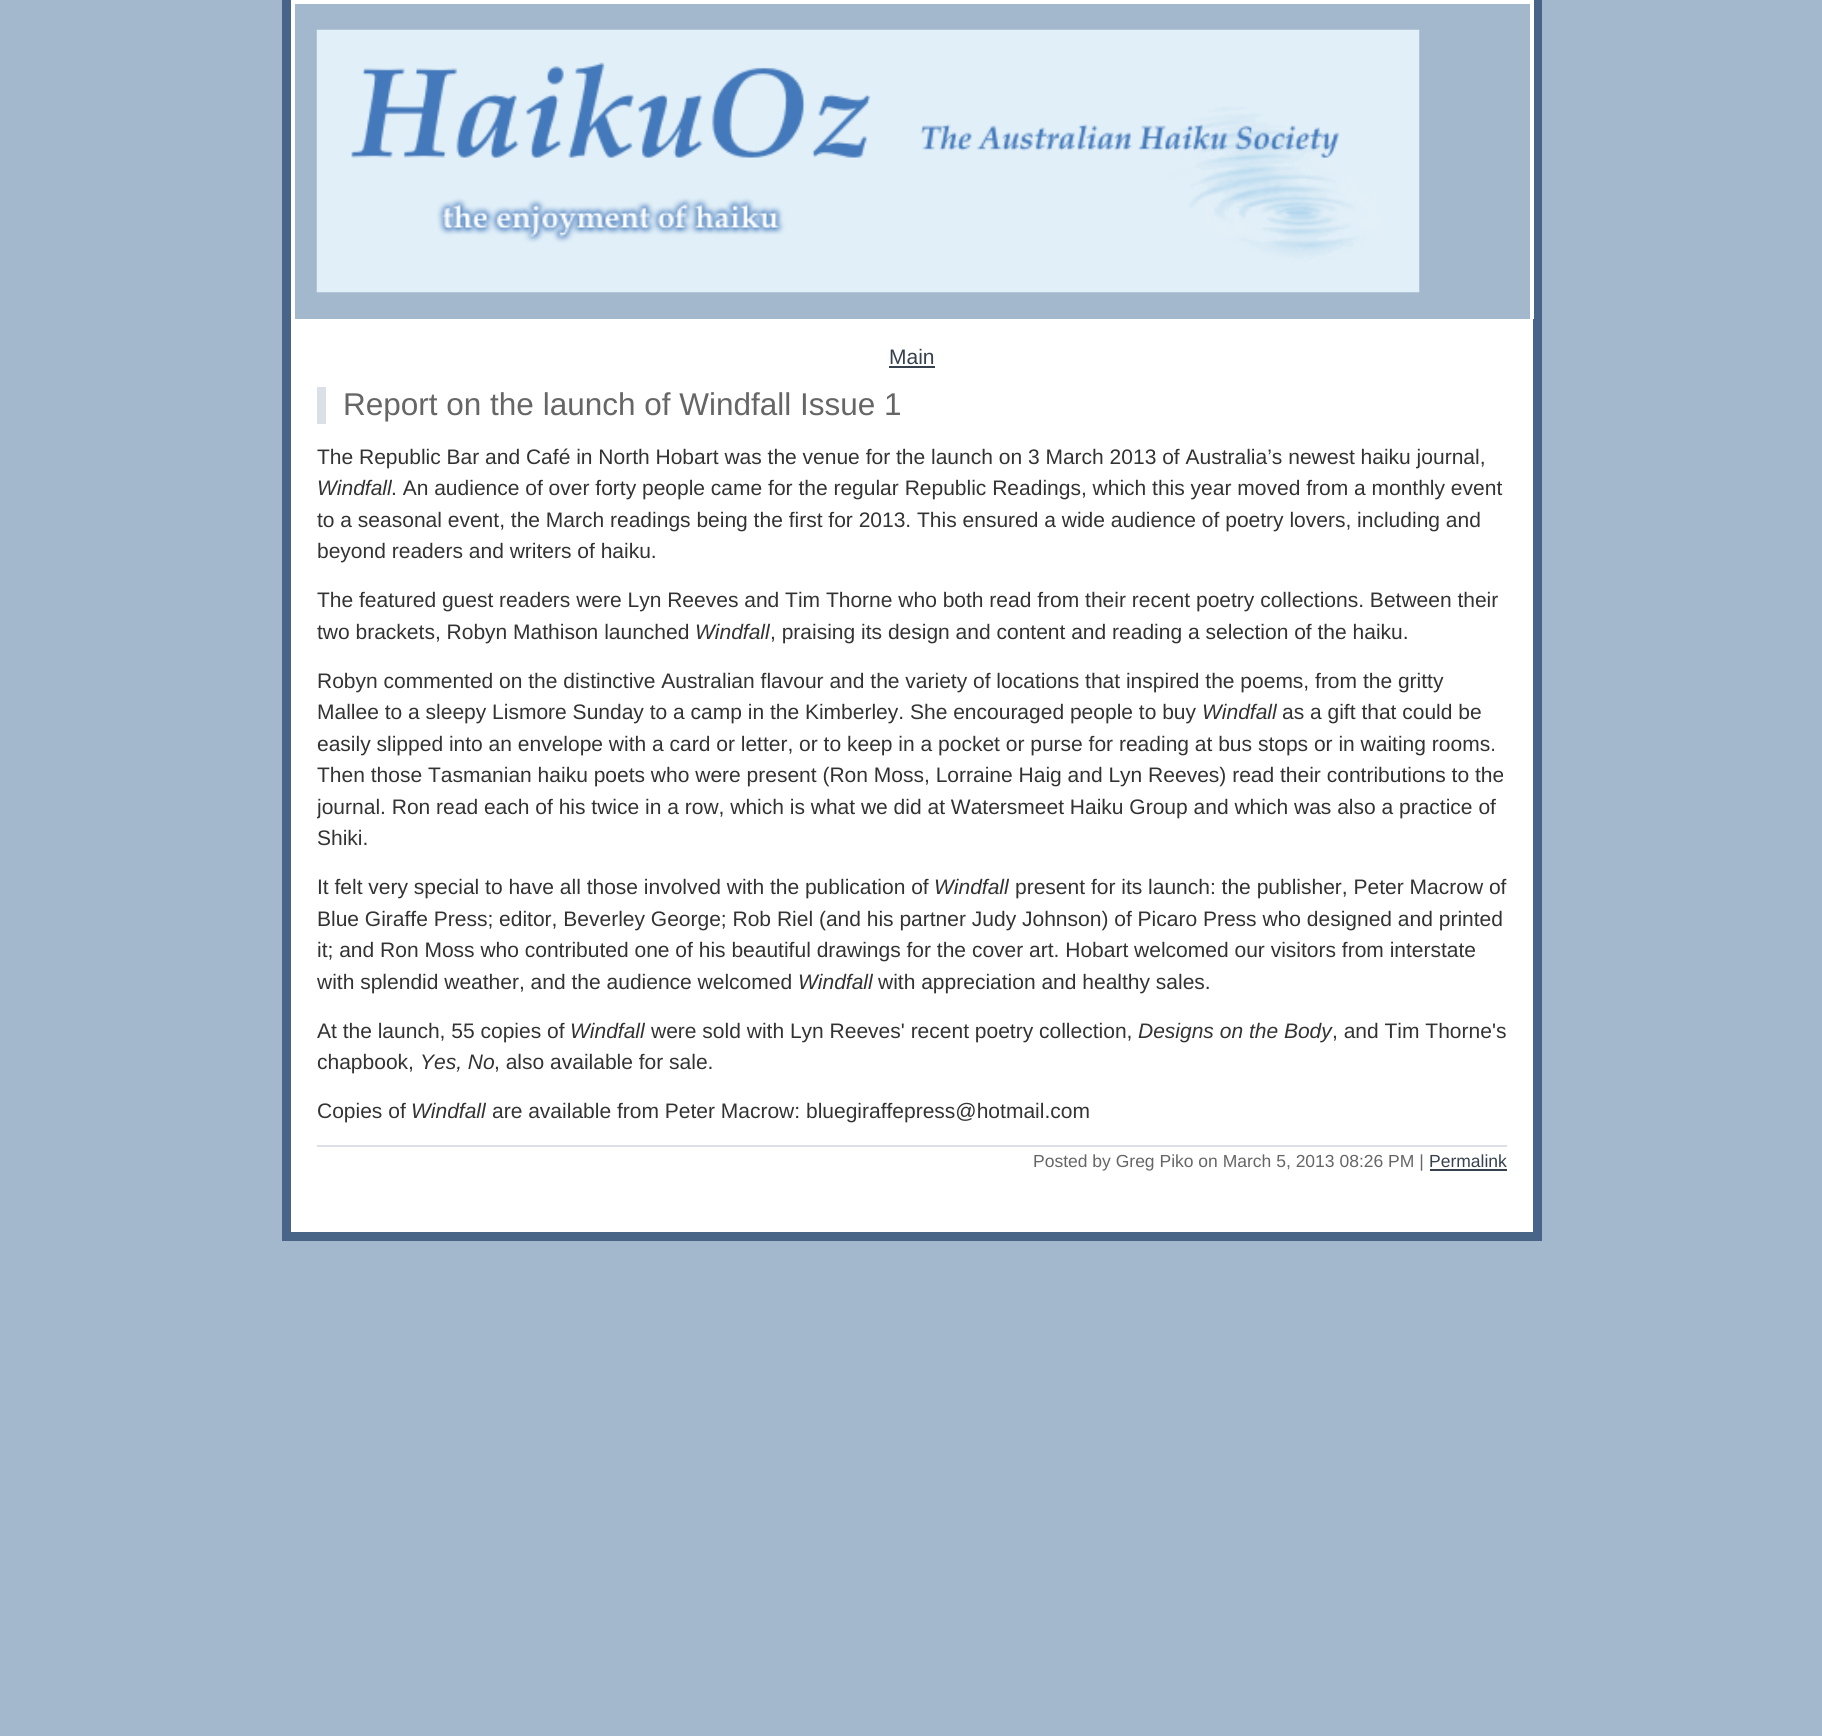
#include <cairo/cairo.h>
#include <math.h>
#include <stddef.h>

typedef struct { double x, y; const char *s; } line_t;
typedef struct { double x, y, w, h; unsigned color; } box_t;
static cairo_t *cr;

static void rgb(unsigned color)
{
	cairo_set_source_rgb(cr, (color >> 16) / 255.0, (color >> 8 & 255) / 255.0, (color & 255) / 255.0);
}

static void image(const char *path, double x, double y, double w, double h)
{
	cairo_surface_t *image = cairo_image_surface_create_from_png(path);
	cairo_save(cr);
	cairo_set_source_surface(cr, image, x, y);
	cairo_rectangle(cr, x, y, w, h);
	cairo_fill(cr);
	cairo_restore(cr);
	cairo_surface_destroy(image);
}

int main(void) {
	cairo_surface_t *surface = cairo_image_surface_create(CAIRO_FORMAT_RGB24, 1822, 1736);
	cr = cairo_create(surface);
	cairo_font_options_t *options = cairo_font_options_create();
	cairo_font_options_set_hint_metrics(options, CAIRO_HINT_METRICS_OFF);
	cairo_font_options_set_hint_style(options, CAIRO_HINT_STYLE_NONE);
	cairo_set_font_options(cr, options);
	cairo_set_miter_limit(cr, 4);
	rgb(0xa3b8cc);
	cairo_paint(cr);
	{
		static const box_t items[] = {
			{291, 319, 1242, 913, 0xffffff},
			{1533, 0, 9, 1232, 0x486486},
			{291, 1232, 1251, 9, 0x486486},
			{282, 0, 9, 1241, 0x486486},
			{291, 0, 1242, 4, 0xffffff},
			{1530, 0, 4, 319, 0xffffff},
			{291, 0, 4, 319, 0xffffff},
		};
		for (size_t i = 0; i < sizeof items / sizeof *items; i++) {
			rgb(items[i].color);
			cairo_rectangle(cr, items[i].x, items[i].y, items[i].w, items[i].h);
			cairo_fill(cr);
		}
	}
	image("img/1.png", 316, 29, 1104, 264);
	{
		static const box_t items[] = {
			{889, 366, 46, 2, 0x36414d},
			{317, 387, 9, 37, 0xdae0e6},
			{317, 1145, 1190, 2, 0xdae0e6},
			{1430, 1169, 77, 2, 0x36414d},
		};
		for (size_t i = 0; i < sizeof items / sizeof *items; i++) {
			rgb(items[i].color);
			cairo_rectangle(cr, items[i].x, items[i].y, items[i].w, items[i].h);
			cairo_fill(cr);
		}
	}
	cairo_select_font_face(cr, "Liberation Sans", CAIRO_FONT_SLANT_NORMAL, CAIRO_FONT_WEIGHT_NORMAL);
	cairo_set_font_size(cr, 21);
	cairo_move_to(cr, 889, 364);
	cairo_show_text(cr, "Main");
	cairo_set_font_size(cr, 31.5);
	rgb(0x666666);
	cairo_move_to(cr, 343, 415);
	cairo_show_text(cr, "Report on the launch of Windfall Issue 1");
	cairo_set_font_size(cr, 21);
	rgb(0x333333);
	cairo_move_to(cr, 317, 464);
	cairo_show_text(cr, "The Republic Bar and Café in North Hobart was the venue for the launch on 3 March 2013 of Australia’s newest haiku journal,");
	cairo_select_font_face(cr, "Liberation Sans", CAIRO_FONT_SLANT_ITALIC, CAIRO_FONT_WEIGHT_NORMAL);
	cairo_move_to(cr, 317, 495);
	cairo_show_text(cr, "Windfall");
	cairo_select_font_face(cr, "Liberation Sans", CAIRO_FONT_SLANT_NORMAL, CAIRO_FONT_WEIGHT_NORMAL);
	{
		static const line_t items[] = {
			{391, 495, ". An audience of over forty people came for the regular Republic Readings, which this year moved from a monthly event"},
			{317, 527, "to a seasonal event, the March readings being the first for 2013. This ensured a wide audience of poetry lovers, including and"},
			{317, 558, "beyond readers and writers of haiku."},
			{317, 607, "The featured guest readers were Lyn Reeves and Tim Thorne who both read from their recent poetry collections. Between their"},
			{317, 639, "two brackets, Robyn Mathison launched"},
		};
		for (size_t i = 0; i < sizeof items / sizeof *items; i++) {
			cairo_move_to(cr, items[i].x, items[i].y);
			cairo_show_text(cr, items[i].s);
		}
	}
	cairo_select_font_face(cr, "Liberation Sans", CAIRO_FONT_SLANT_ITALIC, CAIRO_FONT_WEIGHT_NORMAL);
	cairo_move_to(cr, 695, 639);
	cairo_show_text(cr, "Windfall");
	cairo_select_font_face(cr, "Liberation Sans", CAIRO_FONT_SLANT_NORMAL, CAIRO_FONT_WEIGHT_NORMAL);
	{
		static const line_t items[] = {
			{770, 639, ", praising its design and content and reading a selection of the haiku."},
			{317, 688, "Robyn commented on the distinctive Australian flavour and the variety of locations that inspired the poems, from the gritty"},
			{317, 719, "Mallee to a sleepy Lismore Sunday to a camp in the Kimberley. She encouraged people to buy"},
		};
		for (size_t i = 0; i < sizeof items / sizeof *items; i++) {
			cairo_move_to(cr, items[i].x, items[i].y);
			cairo_show_text(cr, items[i].s);
		}
	}
	cairo_select_font_face(cr, "Liberation Sans", CAIRO_FONT_SLANT_ITALIC, CAIRO_FONT_WEIGHT_NORMAL);
	cairo_move_to(cr, 1202, 719);
	cairo_show_text(cr, "Windfall");
	cairo_select_font_face(cr, "Liberation Sans", CAIRO_FONT_SLANT_NORMAL, CAIRO_FONT_WEIGHT_NORMAL);
	{
		static const line_t items[] = {
			{1282, 719, "as a gift that could be"},
			{317, 751, "easily slipped into an envelope with a card or letter, or to keep in a pocket or purse for reading at bus stops or in waiting rooms."},
			{317, 782, "Then those Tasmanian haiku poets who were present (Ron Moss, Lorraine Haig and Lyn Reeves) read their contributions to the"},
		};
		for (size_t i = 0; i < sizeof items / sizeof *items; i++) {
			cairo_move_to(cr, items[i].x, items[i].y);
			cairo_show_text(cr, items[i].s);
		}
	}
	cairo_save(cr);
	cairo_rectangle(cr, 317, 387, 1190, 819);
	cairo_clip(cr);
	cairo_move_to(cr, 317, 814);
	cairo_show_text(cr, "journal. Ron read each of his twice in a row, which is what we did at Watersmeet Haiku Group and which was also a practice of");
	cairo_restore(cr);
	cairo_move_to(cr, 317, 845);
	cairo_show_text(cr, "Shiki.");
	cairo_move_to(cr, 317, 894);
	cairo_show_text(cr, "It felt very special to have all those involved with the publication of");
	cairo_select_font_face(cr, "Liberation Sans", CAIRO_FONT_SLANT_ITALIC, CAIRO_FONT_WEIGHT_NORMAL);
	cairo_move_to(cr, 934, 894);
	cairo_show_text(cr, "Windfall");
	cairo_select_font_face(cr, "Liberation Sans", CAIRO_FONT_SLANT_NORMAL, CAIRO_FONT_WEIGHT_NORMAL);
	{
		static const line_t items[] = {
			{1015, 894, "present for its launch: the publisher, Peter Macrow of"},
			{317, 926, "Blue Giraffe Press; editor, Beverley George; Rob Riel (and his partner Judy Johnson) of Picaro Press who designed and printed"},
			{317, 957, "it; and Ron Moss who contributed one of his beautiful drawings for the cover art. Hobart welcomed our visitors from interstate"},
			{317, 989, "with splendid weather, and the audience welcomed"},
		};
		for (size_t i = 0; i < sizeof items / sizeof *items; i++) {
			cairo_move_to(cr, items[i].x, items[i].y);
			cairo_show_text(cr, items[i].s);
		}
	}
	cairo_select_font_face(cr, "Liberation Sans", CAIRO_FONT_SLANT_ITALIC, CAIRO_FONT_WEIGHT_NORMAL);
	cairo_move_to(cr, 798, 989);
	cairo_show_text(cr, "Windfall");
	cairo_select_font_face(cr, "Liberation Sans", CAIRO_FONT_SLANT_NORMAL, CAIRO_FONT_WEIGHT_NORMAL);
	cairo_move_to(cr, 878, 989);
	cairo_show_text(cr, "with appreciation and healthy sales.");
	cairo_move_to(cr, 317, 1038);
	cairo_show_text(cr, "At the launch, 55 copies of");
	cairo_select_font_face(cr, "Liberation Sans", CAIRO_FONT_SLANT_ITALIC, CAIRO_FONT_WEIGHT_NORMAL);
	cairo_move_to(cr, 570, 1038);
	cairo_show_text(cr, "Windfall");
	cairo_select_font_face(cr, "Liberation Sans", CAIRO_FONT_SLANT_NORMAL, CAIRO_FONT_WEIGHT_NORMAL);
	cairo_move_to(cr, 651, 1038);
	cairo_show_text(cr, "were sold with Lyn Reeves' recent poetry collection,");
	cairo_select_font_face(cr, "Liberation Sans", CAIRO_FONT_SLANT_ITALIC, CAIRO_FONT_WEIGHT_NORMAL);
	cairo_move_to(cr, 1138, 1038);
	cairo_show_text(cr, "Designs on the Body");
	cairo_select_font_face(cr, "Liberation Sans", CAIRO_FONT_SLANT_NORMAL, CAIRO_FONT_WEIGHT_NORMAL);
	cairo_move_to(cr, 1332, 1038);
	cairo_show_text(cr, ", and Tim Thorne's");
	cairo_move_to(cr, 317, 1069);
	cairo_show_text(cr, "chapbook,");
	cairo_select_font_face(cr, "Liberation Sans", CAIRO_FONT_SLANT_ITALIC, CAIRO_FONT_WEIGHT_NORMAL);
	cairo_move_to(cr, 420, 1069);
	cairo_show_text(cr, "Yes, No");
	cairo_select_font_face(cr, "Liberation Sans", CAIRO_FONT_SLANT_NORMAL, CAIRO_FONT_WEIGHT_NORMAL);
	cairo_move_to(cr, 494, 1069);
	cairo_show_text(cr, ", also available for sale.");
	cairo_move_to(cr, 317, 1118);
	cairo_show_text(cr, "Copies of");
	cairo_select_font_face(cr, "Liberation Sans", CAIRO_FONT_SLANT_ITALIC, CAIRO_FONT_WEIGHT_NORMAL);
	cairo_move_to(cr, 411, 1118);
	cairo_show_text(cr, "Windfall");
	cairo_select_font_face(cr, "Liberation Sans", CAIRO_FONT_SLANT_NORMAL, CAIRO_FONT_WEIGHT_NORMAL);
	cairo_move_to(cr, 492, 1118);
	cairo_show_text(cr, "are available from Peter Macrow: bluegiraffepress@hotmail.com");
	cairo_set_font_size(cr, 17.5);
	rgb(0x666666);
	cairo_move_to(cr, 1033, 1167);
	cairo_show_text(cr, "Posted by Greg Piko on March 5, 2013 08:26 PM |");
	rgb(0x36414d);
	cairo_move_to(cr, 1429, 1167);
	cairo_show_text(cr, "Permalink");
	cairo_surface_write_to_png(surface, "page.png");
	cairo_font_options_destroy(options);
	cairo_destroy(cr);
	cairo_surface_destroy(surface);
	return 0;
}
